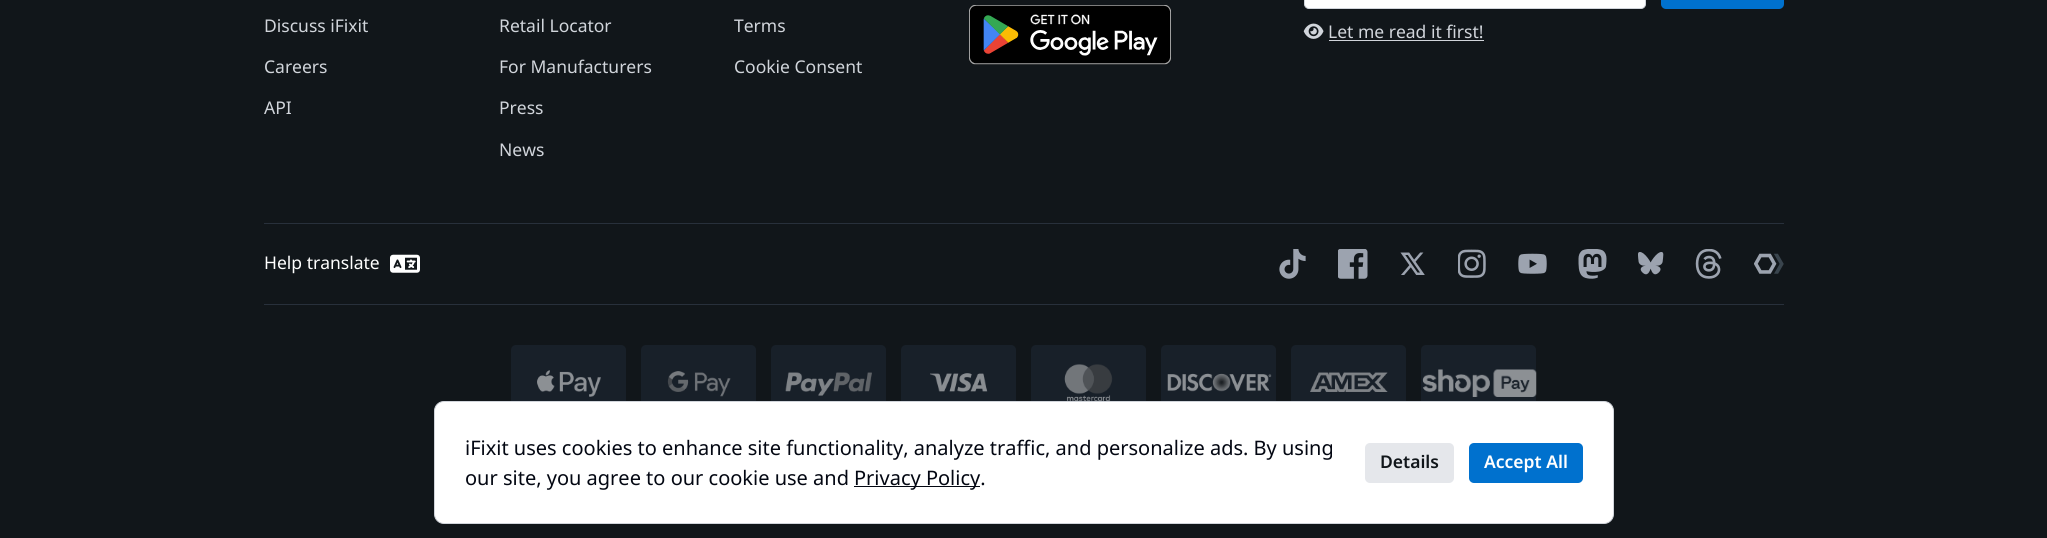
#include <cairo/cairo.h>
#include <math.h>
#include <stddef.h>

typedef struct { double x, y; const char *s; } line_t;
static cairo_t *cr;

static void rgb(unsigned color)
{
	cairo_set_source_rgb(cr, (color >> 16) / 255.0, (color >> 8 & 255) / 255.0, (color & 255) / 255.0);
}

static void rrect(double x, double y, double w, double h, double r)
{
	cairo_new_sub_path(cr);
	cairo_arc(cr, x + w - r, y + h - r, r, 0, M_PI / 2);
	cairo_arc(cr, x + r, y + h - r, r, M_PI / 2, M_PI);
	cairo_arc(cr, x + r, y + r, r, M_PI, 1.5 * M_PI);
	cairo_arc(cr, x + w - r, y + r, r, 1.5 * M_PI, 2 * M_PI);
	cairo_close_path(cr);
}

static void image(const char *path, double x, double y, double w, double h)
{
	cairo_surface_t *image = cairo_image_surface_create_from_png(path);
	cairo_save(cr);
	cairo_set_source_surface(cr, image, x, y);
	cairo_rectangle(cr, x, y, w, h);
	cairo_fill(cr);
	cairo_restore(cr);
	cairo_surface_destroy(image);
}

int main(void) {
	cairo_surface_t *surface = cairo_image_surface_create(CAIRO_FORMAT_RGB24, 2047, 538);
	cr = cairo_create(surface);
	cairo_font_options_t *options = cairo_font_options_create();
	cairo_font_options_set_hint_metrics(options, CAIRO_HINT_METRICS_OFF);
	cairo_font_options_set_hint_style(options, CAIRO_HINT_STYLE_NONE);
	cairo_set_font_options(cr, options);
	cairo_set_miter_limit(cr, 4);
	rgb(0x11161a);
	cairo_paint(cr);
	image("img/1.png", 969, 5, 202, 60);
	rgb(0xffffff);
	rrect(1304.5, -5.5, 341, 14, 4.5);
	cairo_fill_preserve(cr);
	rgb(0xd1d5db);
	cairo_set_line_width(cr, 1);
	cairo_stroke(cr);
	rgb(0x0071ce);
	rrect(1661, -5, 123, 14, 5);
	cairo_fill(cr);
	image("img/2.png", 1303, 23, 21, 16);
	rgb(0xd1d5db);
	cairo_rectangle(cr, 1329, 40, 155, 1);
	cairo_fill(cr);
	rgb(0x28303b);
	cairo_rectangle(cr, 264, 223, 1520, 1);
	cairo_fill(cr);
	image("img/3.png", 390, 254, 30, 19);
	image("img/4.png", 1279, 249, 27, 30);
	image("img/5.png", 1338, 249, 30, 30);
	image("img/6.png", 1400, 252, 25, 23);
	image("img/7.png", 1458, 249, 28, 29);
	image("img/8.png", 1518, 253, 29, 21);
	image("img/9.png", 1578, 249, 29, 30);
	image("img/10.png", 1638, 252, 26, 23);
	image("img/11.png", 1695, 249, 27, 30);
	image("img/12.png", 1754, 253, 30, 21);
	cairo_rectangle(cr, 264, 304, 1520, 1);
	cairo_fill(cr);
	rgb(0x182029);
	rrect(511, 345, 115, 78, 5);
	cairo_fill(cr);
	image("img/13.png", 537, 370, 64, 27);
	rrect(641, 345, 115, 78, 5);
	cairo_fill(cr);
	image("img/14.png", 667, 371, 64, 26);
	rrect(771, 345, 115, 78, 5);
	cairo_fill(cr);
	image("img/15.png", 785, 372, 87, 24);
	rrect(901, 345, 115, 78, 5);
	cairo_fill(cr);
	image("img/16.png", 930, 373, 58, 19);
	rrect(1031, 345, 115, 78, 5);
	cairo_fill(cr);
	image("img/17.png", 1064, 364, 49, 37);
	rrect(1161, 345, 115, 78, 5);
	cairo_fill(cr);
	image("img/18.png", 1167, 373, 105, 19);
	rrect(1291, 345, 115, 78, 5);
	cairo_fill(cr);
	image("img/19.png", 1310, 372, 78, 20);
	rrect(1421, 345, 115, 78, 5);
	cairo_fill(cr);
	image("img/20.png", 1422, 369, 115, 28);
	rgb(0xffffff);
	rrect(434.5, 401.5, 1179, 122, 9.5);
	cairo_fill_preserve(cr);
	rgb(0xd1d5db);
	cairo_stroke(cr);
	rgb(0x030712);
	cairo_rectangle(cr, 854, 486, 126, 1);
	cairo_fill(cr);
	rgb(0xe5e7eb);
	rrect(1365, 443, 89, 40, 5);
	cairo_fill(cr);
	rgb(0x0071ce);
	rrect(1469, 443, 114, 40, 5);
	cairo_fill(cr);
	cairo_select_font_face(cr, "Noto Sans", CAIRO_FONT_SLANT_NORMAL, CAIRO_FONT_WEIGHT_NORMAL);
	cairo_set_font_size(cr, 17.5);
	rgb(0xd1d5db);
	{
		static const line_t items[] = {
			{264, 32, "Discuss iFixit"},
			{264, 73, "Careers"},
			{264, 114, "API"},
			{499, 32, "Retail Locator"},
			{499, 73, "For Manufacturers"},
			{499, 114, "Press"},
			{499, 156, "News"},
			{734, 32, "Terms"},
			{734, 73, "Cookie Consent"},
			{1328, 38, "Let me read it first!"},
		};
		for (size_t i = 0; i < sizeof items / sizeof *items; i++) {
			cairo_move_to(cr, items[i].x, items[i].y);
			cairo_show_text(cr, items[i].s);
		}
	}
	rgb(0xffffff);
	cairo_move_to(cr, 264, 269);
	cairo_show_text(cr, "Help translate");
	cairo_set_font_size(cr, 20);
	rgb(0x030712);
	{
		static const line_t items[] = {
			{465, 455, "iFixit uses cookies to enhance site functionality, analyze traffic, and personalize ads. By using"},
			{465, 485, "our site, you agree to our cookie use and"},
			{854, 485, "Privacy Policy."},
		};
		for (size_t i = 0; i < sizeof items / sizeof *items; i++) {
			cairo_move_to(cr, items[i].x, items[i].y);
			cairo_show_text(cr, items[i].s);
		}
	}
	cairo_select_font_face(cr, "Noto Sans SemiBold", CAIRO_FONT_SLANT_NORMAL, CAIRO_FONT_WEIGHT_NORMAL);
	cairo_set_font_size(cr, 17.5);
	rgb(0x11161a);
	cairo_move_to(cr, 1380, 468);
	cairo_show_text(cr, "Details");
	rgb(0xffffff);
	cairo_move_to(cr, 1484, 468);
	cairo_show_text(cr, "Accept All");
	cairo_surface_write_to_png(surface, "page.png");
	cairo_font_options_destroy(options);
	cairo_destroy(cr);
	cairo_surface_destroy(surface);
	return 0;
}
